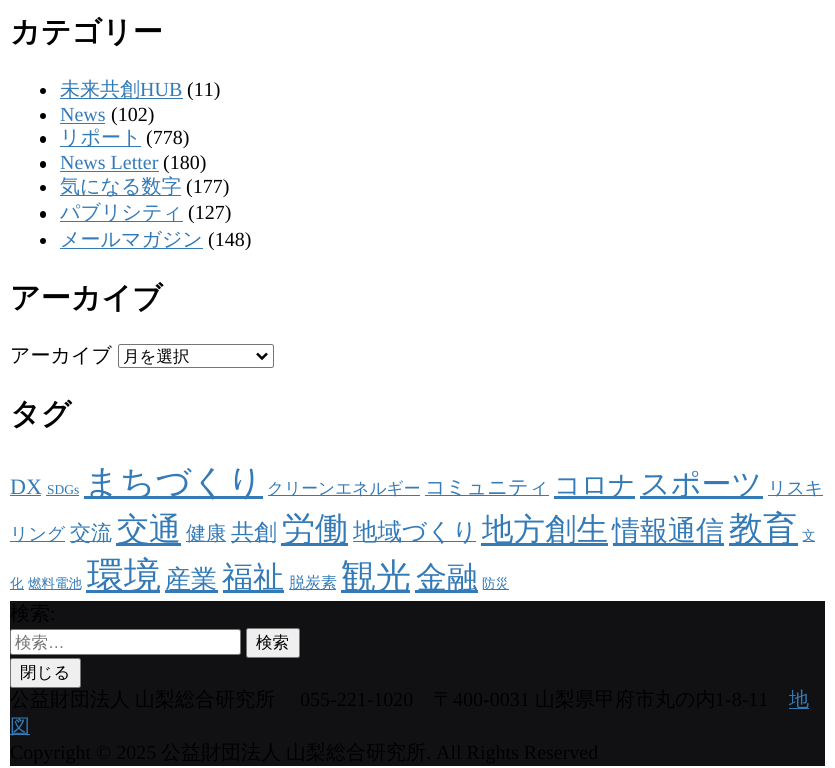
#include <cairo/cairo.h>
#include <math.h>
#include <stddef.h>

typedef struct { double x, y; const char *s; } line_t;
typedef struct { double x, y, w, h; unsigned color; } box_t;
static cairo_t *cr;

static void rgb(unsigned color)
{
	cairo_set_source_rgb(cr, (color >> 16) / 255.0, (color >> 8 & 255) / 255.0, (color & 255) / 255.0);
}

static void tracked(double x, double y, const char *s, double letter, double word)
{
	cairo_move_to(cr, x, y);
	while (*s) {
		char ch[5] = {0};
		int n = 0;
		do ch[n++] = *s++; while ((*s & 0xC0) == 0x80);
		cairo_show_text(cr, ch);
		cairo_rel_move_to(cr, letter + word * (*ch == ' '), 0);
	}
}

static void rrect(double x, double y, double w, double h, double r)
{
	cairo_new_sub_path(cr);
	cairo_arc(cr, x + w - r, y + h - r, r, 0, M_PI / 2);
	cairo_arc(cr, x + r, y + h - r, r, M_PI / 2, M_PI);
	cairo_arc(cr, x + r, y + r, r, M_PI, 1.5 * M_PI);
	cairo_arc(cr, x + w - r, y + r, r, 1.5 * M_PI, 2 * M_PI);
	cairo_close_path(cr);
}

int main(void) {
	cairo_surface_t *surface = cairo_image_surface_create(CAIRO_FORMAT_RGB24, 835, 768);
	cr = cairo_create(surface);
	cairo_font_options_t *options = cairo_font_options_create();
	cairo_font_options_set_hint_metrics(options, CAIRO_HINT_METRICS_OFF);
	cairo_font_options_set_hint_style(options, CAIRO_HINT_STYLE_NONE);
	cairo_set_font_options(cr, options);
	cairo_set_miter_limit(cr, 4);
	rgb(0xffffff);
	cairo_paint(cr);
	rgb(0x000000);
	cairo_arc(cr, 43, 91, 3, 0, 2 * M_PI);
	cairo_fill(cr);
	rgb(0x337ab7);
	cairo_rectangle(cr, 60, 98, 123, 1);
	cairo_fill(cr);
	rgb(0x000000);
	cairo_arc(cr, 43, 116, 3, 0, 2 * M_PI);
	cairo_fill(cr);
	rgb(0x337ab7);
	cairo_rectangle(cr, 60, 123, 45, 1);
	cairo_fill(cr);
	rgb(0x000000);
	rrect(40, 136, 6, 7, 3);
	cairo_fill(cr);
	rgb(0x337ab7);
	cairo_rectangle(cr, 60, 146, 81, 1);
	cairo_fill(cr);
	rgb(0x000000);
	rrect(40, 161, 6, 7, 3);
	cairo_fill(cr);
	rgb(0x337ab7);
	cairo_rectangle(cr, 60, 171, 99, 1);
	cairo_fill(cr);
	rgb(0x000000);
	cairo_arc(cr, 43, 188, 3, 0, 2 * M_PI);
	cairo_fill(cr);
	rgb(0x337ab7);
	cairo_rectangle(cr, 60, 195, 121, 1);
	cairo_fill(cr);
	rgb(0x000000);
	rrect(40, 211, 6, 7, 3);
	cairo_fill(cr);
	rgb(0x337ab7);
	cairo_rectangle(cr, 60, 221, 123, 1);
	cairo_fill(cr);
	rgb(0x000000);
	cairo_arc(cr, 43, 241, 3, 0, 2 * M_PI);
	cairo_fill(cr);
	rgb(0x337ab7);
	cairo_rectangle(cr, 60, 248, 143, 1);
	cairo_fill(cr);
	rrect(118.5, 344.5, 155, 23, 2);
	rgb(0x767676);
	cairo_set_line_width(cr, 1);
	cairo_stroke(cr);
	cairo_new_path(cr);
	cairo_move_to(cr, 257, 353.5);
	cairo_line_to(cr, 262, 358.5);
	cairo_line_to(cr, 267, 353.5);
	rgb(0x000000);
	cairo_set_line_width(cr, 2.5);
	cairo_stroke(cr);
	{
		static const box_t items[] = {
			{10, 495, 31, 1, 0x337ab7},
			{46, 495, 33, 1, 0x337ab7},
			{84, 496, 179, 3, 0x337ab7},
			{268, 495, 152, 1, 0x337ab7},
			{425, 495, 124, 1, 0x337ab7},
			{554, 496, 81, 3, 0x337ab7},
			{640, 496, 123, 3, 0x337ab7},
			{768, 495, 55, 1, 0x337ab7},
			{10, 541, 55, 1, 0x337ab7},
			{70, 541, 41, 1, 0x337ab7},
			{116, 543, 65, 3, 0x337ab7},
			{186, 541, 40, 1, 0x337ab7},
			{231, 541, 45, 1, 0x337ab7},
			{281, 543, 67, 3, 0x337ab7},
			{353, 541, 123, 1, 0x337ab7},
			{481, 543, 127, 3, 0x337ab7},
			{613, 543, 111, 3, 0x337ab7},
			{729, 543, 69, 3, 0x337ab7},
			{803, 541, 12, 1, 0x337ab7},
			{10, 589, 14, 1, 0x337ab7},
			{29, 589, 52, 1, 0x337ab7},
			{86, 590, 74, 3, 0x337ab7},
			{165, 590, 53, 3, 0x337ab7},
			{223, 590, 61, 3, 0x337ab7},
			{289, 589, 47, 1, 0x337ab7},
			{341, 590, 69, 3, 0x337ab7},
			{415, 590, 63, 3, 0x337ab7},
			{483, 589, 26, 1, 0x337ab7},
			{10, 601, 815, 165, 0x111113},
		};
		for (size_t i = 0; i < sizeof items / sizeof *items; i++) {
			rgb(items[i].color);
			cairo_rectangle(cr, items[i].x, items[i].y, items[i].w, items[i].h);
			cairo_fill(cr);
		}
	}
	rgb(0xffffff);
	rrect(10.5, 629.5, 230, 25, 2);
	cairo_fill_preserve(cr);
	rgb(0x767676);
	cairo_set_line_width(cr, 1);
	cairo_stroke(cr);
	rgb(0xefefef);
	rrect(246.5, 628.5, 53, 29, 2);
	cairo_fill_preserve(cr);
	rgb(0x767676);
	cairo_stroke(cr);
	rgb(0xefefef);
	rrect(10.5, 658.5, 70, 29, 2);
	cairo_fill_preserve(cr);
	rgb(0x767676);
	cairo_stroke(cr);
	rgb(0x337ab7);
	cairo_rectangle(cr, 789, 708, 20, 1);
	cairo_fill(cr);
	cairo_rectangle(cr, 10, 734, 20, 1);
	cairo_fill(cr);
	cairo_select_font_face(cr, "WenQuanYi Zen Hei", CAIRO_FONT_SLANT_NORMAL, CAIRO_FONT_WEIGHT_BOLD);
	cairo_set_font_size(cr, 30);
	rgb(0x000000);
	cairo_move_to(cr, 10, 42);
	cairo_show_text(cr, "カテゴリー");
	cairo_select_font_face(cr, "WenQuanYi Zen Hei Medium", CAIRO_FONT_SLANT_NORMAL, CAIRO_FONT_WEIGHT_NORMAL);
	cairo_set_font_size(cr, 20);
	rgb(0x337ab7);
	cairo_move_to(cr, 60, 96);
	cairo_show_text(cr, "未来共創");
	cairo_select_font_face(cr, "Liberation Serif", CAIRO_FONT_SLANT_NORMAL, CAIRO_FONT_WEIGHT_NORMAL);
	cairo_move_to(cr, 140, 96);
	cairo_show_text(cr, "HUB");
	rgb(0x000000);
	cairo_move_to(cr, 187, 96);
	cairo_show_text(cr, "(11)");
	rgb(0x337ab7);
	cairo_move_to(cr, 60, 121);
	cairo_show_text(cr, "News");
	rgb(0x000000);
	cairo_move_to(cr, 111, 121);
	cairo_show_text(cr, "(102)");
	cairo_select_font_face(cr, "WenQuanYi Zen Hei Medium", CAIRO_FONT_SLANT_NORMAL, CAIRO_FONT_WEIGHT_NORMAL);
	rgb(0x337ab7);
	cairo_move_to(cr, 60, 144);
	cairo_show_text(cr, "リポート");
	cairo_select_font_face(cr, "Liberation Serif", CAIRO_FONT_SLANT_NORMAL, CAIRO_FONT_WEIGHT_NORMAL);
	rgb(0x000000);
	cairo_move_to(cr, 146, 144);
	cairo_show_text(cr, "(778)");
	rgb(0x337ab7);
	cairo_move_to(cr, 60, 169);
	cairo_show_text(cr, "News Letter");
	rgb(0x000000);
	cairo_move_to(cr, 163, 169);
	cairo_show_text(cr, "(180)");
	cairo_select_font_face(cr, "WenQuanYi Zen Hei Medium", CAIRO_FONT_SLANT_NORMAL, CAIRO_FONT_WEIGHT_NORMAL);
	rgb(0x337ab7);
	cairo_move_to(cr, 60, 193);
	cairo_show_text(cr, "気になる数字");
	cairo_select_font_face(cr, "Liberation Serif", CAIRO_FONT_SLANT_NORMAL, CAIRO_FONT_WEIGHT_NORMAL);
	rgb(0x000000);
	cairo_move_to(cr, 186, 193);
	cairo_show_text(cr, "(177)");
	cairo_select_font_face(cr, "WenQuanYi Zen Hei Medium", CAIRO_FONT_SLANT_NORMAL, CAIRO_FONT_WEIGHT_NORMAL);
	rgb(0x337ab7);
	cairo_move_to(cr, 60, 219);
	cairo_show_text(cr, "パブリシティ");
	cairo_select_font_face(cr, "Liberation Serif", CAIRO_FONT_SLANT_NORMAL, CAIRO_FONT_WEIGHT_NORMAL);
	rgb(0x000000);
	cairo_move_to(cr, 188, 219);
	cairo_show_text(cr, "(127)");
	cairo_select_font_face(cr, "WenQuanYi Zen Hei Medium", CAIRO_FONT_SLANT_NORMAL, CAIRO_FONT_WEIGHT_NORMAL);
	rgb(0x337ab7);
	cairo_move_to(cr, 60, 246);
	cairo_show_text(cr, "メールマガジン");
	cairo_select_font_face(cr, "Liberation Serif", CAIRO_FONT_SLANT_NORMAL, CAIRO_FONT_WEIGHT_NORMAL);
	rgb(0x000000);
	cairo_move_to(cr, 208, 246);
	cairo_show_text(cr, "(148)");
	cairo_select_font_face(cr, "WenQuanYi Zen Hei", CAIRO_FONT_SLANT_NORMAL, CAIRO_FONT_WEIGHT_BOLD);
	cairo_set_font_size(cr, 30);
	cairo_move_to(cr, 10, 308);
	cairo_show_text(cr, "アーカイブ");
	cairo_select_font_face(cr, "WenQuanYi Zen Hei Medium", CAIRO_FONT_SLANT_NORMAL, CAIRO_FONT_WEIGHT_NORMAL);
	cairo_set_font_size(cr, 20);
	cairo_move_to(cr, 10, 362);
	cairo_show_text(cr, "アーカイブ");
	cairo_set_font_size(cr, 16.5);
	cairo_move_to(cr, 123, 362);
	cairo_show_text(cr, "月を選択");
	cairo_select_font_face(cr, "WenQuanYi Zen Hei", CAIRO_FONT_SLANT_NORMAL, CAIRO_FONT_WEIGHT_BOLD);
	cairo_set_font_size(cr, 30);
	cairo_move_to(cr, 10, 424);
	cairo_show_text(cr, "タグ");
	cairo_select_font_face(cr, "Liberation Serif", CAIRO_FONT_SLANT_NORMAL, CAIRO_FONT_WEIGHT_NORMAL);
	cairo_set_font_size(cr, 22);
	rgb(0x337ab7);
	cairo_move_to(cr, 10, 494);
	cairo_show_text(cr, "DX");
	cairo_set_font_size(cr, 13.5);
	cairo_move_to(cr, 47, 494);
	cairo_show_text(cr, "SDGs");
	cairo_select_font_face(cr, "WenQuanYi Zen Hei Medium", CAIRO_FONT_SLANT_NORMAL, CAIRO_FONT_WEIGHT_NORMAL);
	cairo_set_font_size(cr, 35);
	cairo_move_to(cr, 84, 494);
	cairo_show_text(cr, "まちづくり");
	cairo_set_font_size(cr, 16.75);
	cairo_move_to(cr, 267, 494);
	cairo_show_text(cr, "クリーンエネルギー");
	cairo_set_font_size(cr, 20.25);
	cairo_move_to(cr, 425, 494);
	cairo_show_text(cr, "コミュニティ");
	cairo_set_font_size(cr, 26.5);
	cairo_move_to(cr, 554, 494);
	cairo_show_text(cr, "コロナ");
	cairo_set_font_size(cr, 30);
	cairo_move_to(cr, 640, 494);
	cairo_show_text(cr, "スポーツ");
	cairo_set_font_size(cr, 18);
	cairo_move_to(cr, 768, 494);
	cairo_show_text(cr, "リスキ");
	cairo_move_to(cr, 10, 540);
	cairo_show_text(cr, "リング");
	cairo_set_font_size(cr, 21);
	cairo_move_to(cr, 70, 540);
	cairo_show_text(cr, "交流");
	cairo_set_font_size(cr, 32);
	cairo_move_to(cr, 117, 540);
	cairo_show_text(cr, "交通");
	cairo_set_font_size(cr, 20);
	cairo_move_to(cr, 186, 540);
	cairo_show_text(cr, "健康");
	cairo_set_font_size(cr, 23);
	cairo_move_to(cr, 231, 540);
	cairo_show_text(cr, "共創");
	cairo_set_font_size(cr, 33);
	cairo_move_to(cr, 282, 540);
	cairo_show_text(cr, "労働");
	cairo_set_font_size(cr, 24.5);
	cairo_move_to(cr, 353, 540);
	cairo_show_text(cr, "地域づくり");
	cairo_set_font_size(cr, 31.5);
	cairo_move_to(cr, 482, 540);
	cairo_show_text(cr, "地方創生");
	cairo_set_font_size(cr, 28);
	cairo_move_to(cr, 612, 540);
	cairo_show_text(cr, "情報通信");
	cairo_set_font_size(cr, 34);
	cairo_move_to(cr, 729, 540);
	cairo_show_text(cr, "教育");
	cairo_set_font_size(cr, 13.5);
	{
		static const line_t items[] = {
			{802, 540, "文"},
			{10, 588, "化"},
			{28, 588, "燃料電池"},
		};
		for (size_t i = 0; i < sizeof items / sizeof *items; i++) {
			cairo_move_to(cr, items[i].x, items[i].y);
			cairo_show_text(cr, items[i].s);
		}
	}
	cairo_set_font_size(cr, 37);
	cairo_move_to(cr, 87, 588);
	cairo_show_text(cr, "環境");
	cairo_set_font_size(cr, 26);
	cairo_move_to(cr, 165, 588);
	cairo_show_text(cr, "産業");
	cairo_set_font_size(cr, 31);
	cairo_move_to(cr, 222, 588);
	cairo_show_text(cr, "福祉");
	cairo_set_font_size(cr, 16);
	cairo_move_to(cr, 289, 588);
	cairo_show_text(cr, "脱炭素");
	cairo_set_font_size(cr, 35);
	cairo_move_to(cr, 341, 588);
	cairo_show_text(cr, "観光");
	cairo_set_font_size(cr, 31);
	cairo_move_to(cr, 416, 588);
	cairo_show_text(cr, "金融");
	cairo_set_font_size(cr, 13.5);
	cairo_move_to(cr, 482, 588);
	cairo_show_text(cr, "防災");
	cairo_set_font_size(cr, 20);
	rgb(0x000000);
	cairo_move_to(cr, 10, 620);
	cairo_show_text(cr, "検索");
	cairo_select_font_face(cr, "Liberation Serif", CAIRO_FONT_SLANT_NORMAL, CAIRO_FONT_WEIGHT_NORMAL);
	cairo_move_to(cr, 50, 620);
	cairo_show_text(cr, ":");
	cairo_select_font_face(cr, "WenQuanYi Zen Hei Medium", CAIRO_FONT_SLANT_NORMAL, CAIRO_FONT_WEIGHT_NORMAL);
	cairo_set_font_size(cr, 16.5);
	rgb(0x757575);
	cairo_move_to(cr, 15, 648);
	cairo_show_text(cr, "検索");
	cairo_select_font_face(cr, "Liberation Sans", CAIRO_FONT_SLANT_NORMAL, CAIRO_FONT_WEIGHT_NORMAL);
	cairo_move_to(cr, 48, 648);
	cairo_show_text(cr, "…");
	cairo_select_font_face(cr, "WenQuanYi Zen Hei Medium", CAIRO_FONT_SLANT_NORMAL, CAIRO_FONT_WEIGHT_NORMAL);
	rgb(0x000000);
	cairo_move_to(cr, 256, 648);
	cairo_show_text(cr, "検索");
	cairo_move_to(cr, 20, 678);
	cairo_show_text(cr, "閉じる");
	cairo_set_font_size(cr, 20);
	tracked(10, 706, "公益財団法人 山梨総合研究所", 0, -1);
	cairo_select_font_face(cr, "Liberation Serif", CAIRO_FONT_SLANT_NORMAL, CAIRO_FONT_WEIGHT_NORMAL);
	cairo_move_to(cr, 300, 706);
	cairo_show_text(cr, "055-221-1020");
	cairo_select_font_face(cr, "WenQuanYi Zen Hei Medium", CAIRO_FONT_SLANT_NORMAL, CAIRO_FONT_WEIGHT_NORMAL);
	cairo_move_to(cr, 433, 706);
	cairo_show_text(cr, "〒");
	cairo_select_font_face(cr, "Liberation Serif", CAIRO_FONT_SLANT_NORMAL, CAIRO_FONT_WEIGHT_NORMAL);
	cairo_move_to(cr, 453, 706);
	cairo_show_text(cr, "400-0031");
	cairo_select_font_face(cr, "WenQuanYi Zen Hei Medium", CAIRO_FONT_SLANT_NORMAL, CAIRO_FONT_WEIGHT_NORMAL);
	cairo_move_to(cr, 535, 706);
	cairo_show_text(cr, "山梨県甲府市丸の内");
	cairo_select_font_face(cr, "Liberation Serif", CAIRO_FONT_SLANT_NORMAL, CAIRO_FONT_WEIGHT_NORMAL);
	cairo_move_to(cr, 715, 706);
	cairo_show_text(cr, "1-8-11");
	cairo_select_font_face(cr, "WenQuanYi Zen Hei Medium", CAIRO_FONT_SLANT_NORMAL, CAIRO_FONT_WEIGHT_NORMAL);
	rgb(0x337ab7);
	cairo_move_to(cr, 789, 706);
	cairo_show_text(cr, "地");
	cairo_move_to(cr, 10, 733);
	cairo_show_text(cr, "図");
	cairo_select_font_face(cr, "Liberation Serif", CAIRO_FONT_SLANT_NORMAL, CAIRO_FONT_WEIGHT_NORMAL);
	rgb(0x000000);
	cairo_move_to(cr, 10, 759);
	cairo_show_text(cr, "Copyright © 2025");
	cairo_select_font_face(cr, "WenQuanYi Zen Hei Medium", CAIRO_FONT_SLANT_NORMAL, CAIRO_FONT_WEIGHT_NORMAL);
	cairo_move_to(cr, 161, 759);
	cairo_show_text(cr, "公益財団法人");
	cairo_move_to(cr, 286, 759);
	cairo_show_text(cr, "山梨総合研究所");
	cairo_select_font_face(cr, "Liberation Serif", CAIRO_FONT_SLANT_NORMAL, CAIRO_FONT_WEIGHT_NORMAL);
	cairo_move_to(cr, 426, 759);
	cairo_show_text(cr, ". All Rights Reserved");
	cairo_surface_write_to_png(surface, "page.png");
	cairo_font_options_destroy(options);
	cairo_destroy(cr);
	cairo_surface_destroy(surface);
	return 0;
}
